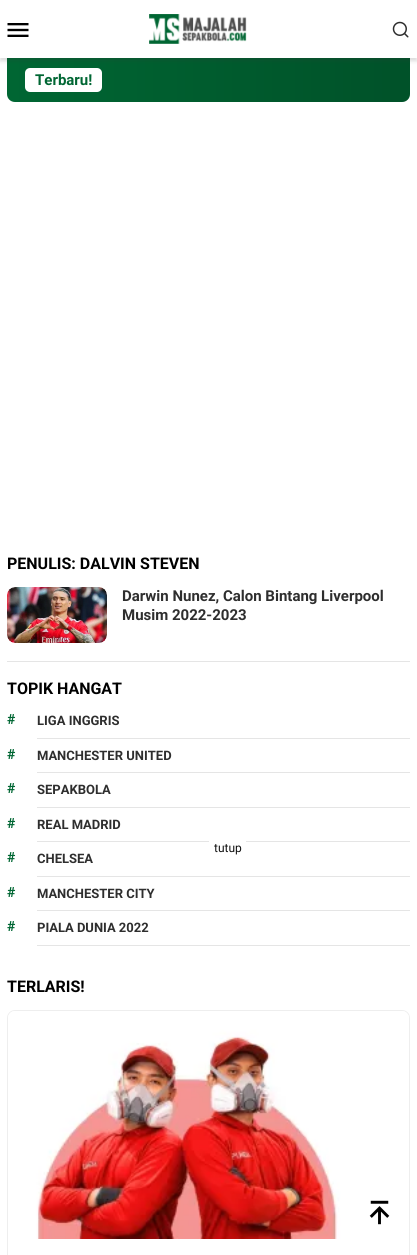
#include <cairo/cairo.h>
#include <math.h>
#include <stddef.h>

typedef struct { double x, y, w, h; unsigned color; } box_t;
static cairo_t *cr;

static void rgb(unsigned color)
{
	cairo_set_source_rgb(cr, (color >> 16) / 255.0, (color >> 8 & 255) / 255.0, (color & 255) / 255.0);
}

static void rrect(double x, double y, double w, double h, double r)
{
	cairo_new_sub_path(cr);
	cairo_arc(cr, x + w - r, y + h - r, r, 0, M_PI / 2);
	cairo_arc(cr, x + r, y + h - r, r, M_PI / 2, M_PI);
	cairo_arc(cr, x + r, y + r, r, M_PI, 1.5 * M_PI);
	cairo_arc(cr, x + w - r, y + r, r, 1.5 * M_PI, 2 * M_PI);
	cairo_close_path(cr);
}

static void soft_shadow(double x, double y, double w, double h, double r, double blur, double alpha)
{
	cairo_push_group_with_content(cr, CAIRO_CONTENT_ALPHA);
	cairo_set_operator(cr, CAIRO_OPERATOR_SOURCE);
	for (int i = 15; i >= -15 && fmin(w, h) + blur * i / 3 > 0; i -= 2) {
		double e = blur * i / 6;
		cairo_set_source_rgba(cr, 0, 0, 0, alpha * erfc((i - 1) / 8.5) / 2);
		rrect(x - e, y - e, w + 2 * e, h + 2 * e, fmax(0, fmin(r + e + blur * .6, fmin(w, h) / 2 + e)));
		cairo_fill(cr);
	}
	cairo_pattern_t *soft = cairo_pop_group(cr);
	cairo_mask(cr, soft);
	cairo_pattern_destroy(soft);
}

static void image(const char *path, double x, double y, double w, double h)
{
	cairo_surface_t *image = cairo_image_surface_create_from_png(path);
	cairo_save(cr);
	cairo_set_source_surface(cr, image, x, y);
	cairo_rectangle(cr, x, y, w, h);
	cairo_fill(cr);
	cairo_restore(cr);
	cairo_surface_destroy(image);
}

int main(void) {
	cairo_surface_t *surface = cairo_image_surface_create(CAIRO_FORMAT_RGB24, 417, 1255);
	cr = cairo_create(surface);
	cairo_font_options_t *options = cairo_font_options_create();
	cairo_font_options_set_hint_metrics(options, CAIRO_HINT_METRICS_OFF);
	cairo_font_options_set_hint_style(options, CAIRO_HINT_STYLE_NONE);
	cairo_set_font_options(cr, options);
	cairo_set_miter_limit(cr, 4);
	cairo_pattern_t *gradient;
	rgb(0xffffff);
	cairo_paint(cr);
	rgb(0x006633);
	cairo_new_path(cr);
	cairo_move_to(cr, 7, 58);
	cairo_line_to(cr, 410, 58);
	cairo_line_to(cr, 410, 94);
	cairo_curve_to(cr, 410, 98.5, 406.5, 102, 402, 102);
	cairo_line_to(cr, 15, 102);
	cairo_curve_to(cr, 10.5, 102, 7, 98.5, 7, 94);
	cairo_close_path(cr);
	cairo_fill(cr);
	gradient = cairo_pattern_create_linear(7, 80, 410, 80);
	cairo_pattern_add_color_stop_rgba(gradient, 0, 0, 0, 0, 0);
	cairo_pattern_add_color_stop_rgba(gradient, 1, 0, 0, 0, 0.2);
	cairo_set_source(cr, gradient);
	cairo_pattern_destroy(gradient);
	cairo_new_path(cr);
	cairo_move_to(cr, 7, 58);
	cairo_line_to(cr, 410, 58);
	cairo_line_to(cr, 410, 94);
	cairo_curve_to(cr, 410, 98.5, 406.5, 102, 402, 102);
	cairo_line_to(cr, 15, 102);
	cairo_curve_to(cr, 10.5, 102, 7, 98.5, 7, 94);
	cairo_close_path(cr);
	cairo_fill(cr);
	rgb(0x343434);
	soft_shadow(0, 3, 417, 58, 0, 2, 0.18);
	rgb(0xffffff);
	cairo_rectangle(cr, 0, 0, 417, 58);
	cairo_fill(cr);
	image("img/1.png", 7, 23, 22, 14);
	image("img/2.png", 149, 14, 98, 30);
	image("img/3.png", 392, 21, 17, 17);
	rrect(25, 68, 77, 24, 5);
	cairo_fill(cr);
	rgb(0xe5e5e5);
	cairo_rectangle(cr, 7, 661, 403, 1);
	cairo_fill(cr);
	image("img/4.png", 7, 587, 100, 56);
	{
		static const box_t items[] = {
			{37, 738, 373, 1, 0xe5e5e5},
			{37, 772, 373, 1, 0xe5e5e5},
			{37, 807, 373, 1, 0xe5e5e5},
			{37, 841, 373, 1, 0xe5e5e5},
			{37, 876, 373, 1, 0xe5e5e5},
			{37, 910, 373, 1, 0xe5e5e5},
			{37, 945, 373, 1, 0xe5e5e5},
		};
		for (size_t i = 0; i < sizeof items / sizeof *items; i++) {
			rgb(items[i].color);
			cairo_rectangle(cr, items[i].x, items[i].y, items[i].w, items[i].h);
			cairo_fill(cr);
		}
	}
	rrect(7.5, 1010.5, 402, 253, 7.5);
	rgb(0xeeeeee);
	cairo_set_line_width(cr, 1);
	cairo_stroke(cr);
	image("img/5.png", 8, 1011, 401, 228);
	rgb(0xffffff);
	cairo_rectangle(cr, 209, 841, 37, 1);
	cairo_fill(cr);
	image("img/6.png", 369, 1200, 21, 25);
	cairo_select_font_face(cr, "Roboto", CAIRO_FONT_SLANT_NORMAL, CAIRO_FONT_WEIGHT_BOLD);
	cairo_set_font_size(cr, 15);
	rgb(0x006633);
	cairo_move_to(cr, 35, 85);
	cairo_show_text(cr, "Terbaru!");
	cairo_set_font_size(cr, 16);
	rgb(0x000000);
	cairo_move_to(cr, 7, 569);
	cairo_show_text(cr, "PENULIS: DALVIN STEVEN");
	cairo_set_font_size(cr, 15);
	rgb(0x2e2e2e);
	cairo_move_to(cr, 122, 601);
	cairo_show_text(cr, "Darwin Nunez, Calon Bintang Liverpool");
	cairo_move_to(cr, 122, 620);
	cairo_show_text(cr, "Musim 2022-2023");
	cairo_set_font_size(cr, 16);
	rgb(0x000000);
	cairo_move_to(cr, 7, 694);
	cairo_show_text(cr, "TOPIK HANGAT");
	cairo_set_font_size(cr, 14);
	rgb(0x006633);
	cairo_move_to(cr, 7, 724);
	cairo_show_text(cr, "#");
	cairo_set_font_size(cr, 13);
	rgb(0x2e2e2e);
	cairo_move_to(cr, 37, 725);
	cairo_show_text(cr, "LIGA INGGRIS");
	cairo_set_font_size(cr, 14);
	rgb(0x006633);
	cairo_move_to(cr, 7, 759);
	cairo_show_text(cr, "#");
	cairo_set_font_size(cr, 13);
	rgb(0x2e2e2e);
	cairo_move_to(cr, 37, 760);
	cairo_show_text(cr, "MANCHESTER UNITED");
	cairo_set_font_size(cr, 14);
	rgb(0x006633);
	cairo_move_to(cr, 7, 793);
	cairo_show_text(cr, "#");
	cairo_set_font_size(cr, 13);
	rgb(0x2e2e2e);
	cairo_move_to(cr, 37, 794);
	cairo_show_text(cr, "SEPAKBOLA");
	cairo_set_font_size(cr, 14);
	rgb(0x006633);
	cairo_move_to(cr, 7, 828);
	cairo_show_text(cr, "#");
	cairo_set_font_size(cr, 13);
	rgb(0x2e2e2e);
	cairo_move_to(cr, 37, 829);
	cairo_show_text(cr, "REAL MADRID");
	cairo_set_font_size(cr, 14);
	rgb(0x006633);
	cairo_move_to(cr, 7, 862);
	cairo_show_text(cr, "#");
	cairo_set_font_size(cr, 13);
	rgb(0x2e2e2e);
	cairo_move_to(cr, 37, 863);
	cairo_show_text(cr, "CHELSEA");
	cairo_set_font_size(cr, 14);
	rgb(0x006633);
	cairo_move_to(cr, 7, 897);
	cairo_show_text(cr, "#");
	cairo_set_font_size(cr, 13);
	rgb(0x2e2e2e);
	cairo_move_to(cr, 37, 898);
	cairo_show_text(cr, "MANCHESTER CITY");
	cairo_set_font_size(cr, 14);
	rgb(0x006633);
	cairo_move_to(cr, 7, 931);
	cairo_show_text(cr, "#");
	cairo_set_font_size(cr, 13);
	rgb(0x2e2e2e);
	cairo_move_to(cr, 37, 932);
	cairo_show_text(cr, "PIALA DUNIA 2022");
	cairo_set_font_size(cr, 16);
	rgb(0x000000);
	cairo_move_to(cr, 7, 992);
	cairo_show_text(cr, "TERLARIS!");
	cairo_select_font_face(cr, "Roboto", CAIRO_FONT_SLANT_NORMAL, CAIRO_FONT_WEIGHT_NORMAL);
	cairo_set_font_size(cr, 12);
	rgb(0x111111);
	cairo_move_to(cr, 214, 852);
	cairo_show_text(cr, "tutup");
	cairo_surface_write_to_png(surface, "page.png");
	cairo_font_options_destroy(options);
	cairo_destroy(cr);
	cairo_surface_destroy(surface);
	return 0;
}
